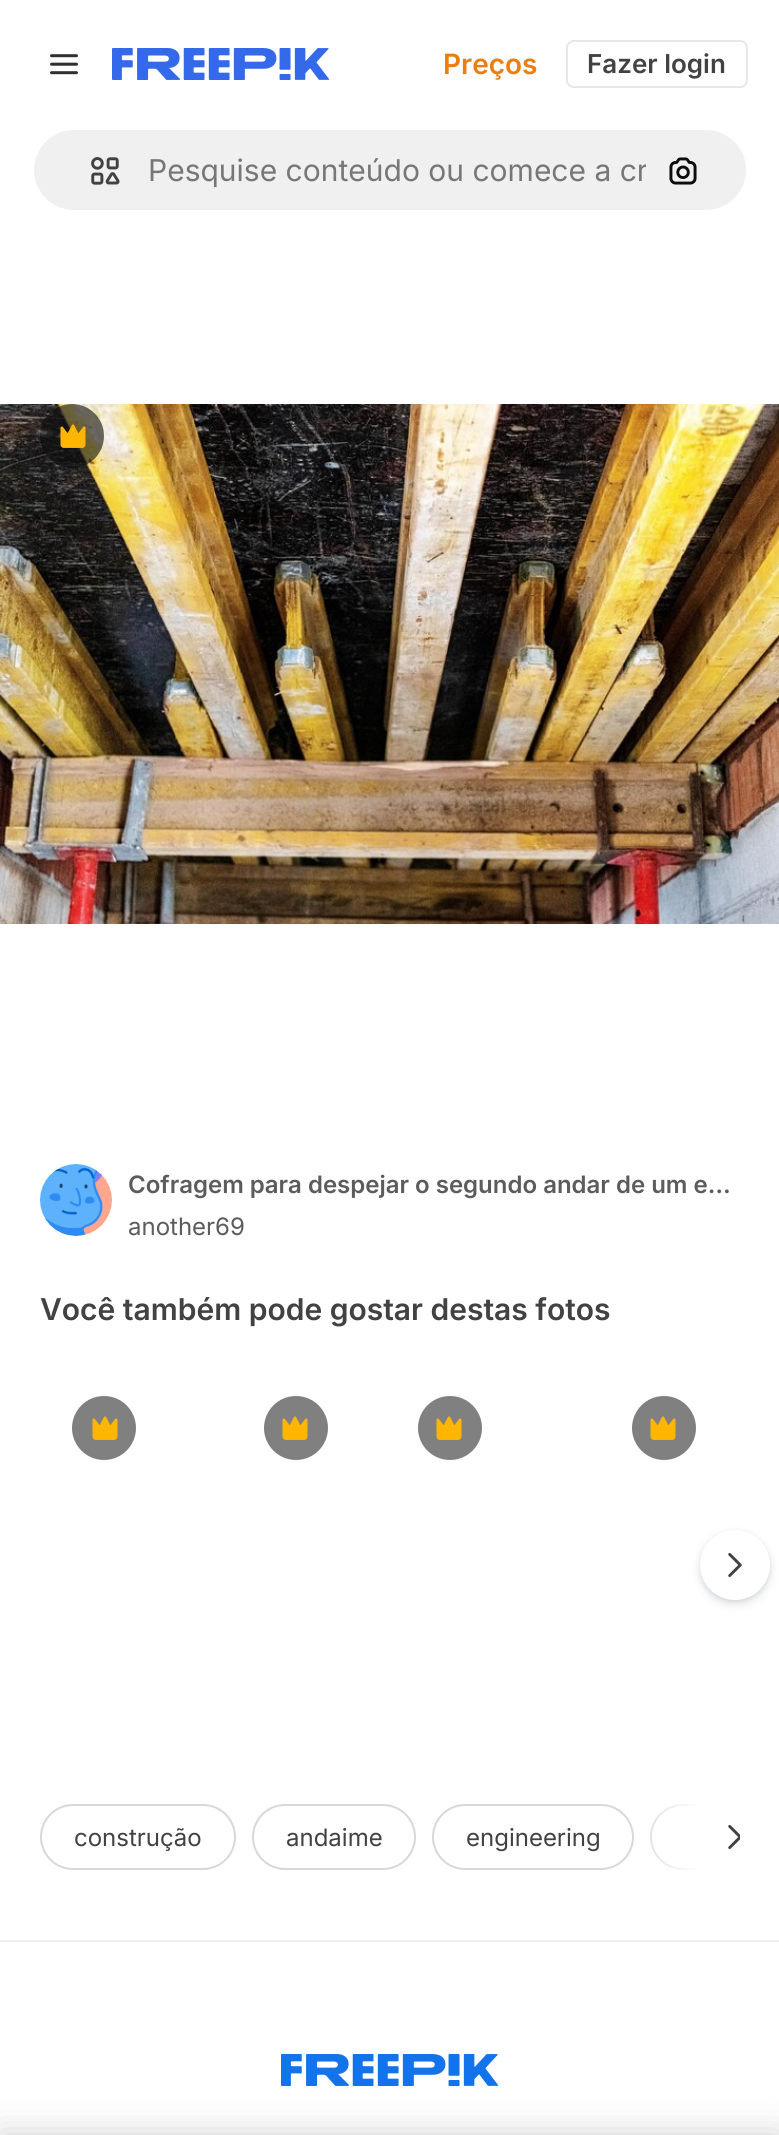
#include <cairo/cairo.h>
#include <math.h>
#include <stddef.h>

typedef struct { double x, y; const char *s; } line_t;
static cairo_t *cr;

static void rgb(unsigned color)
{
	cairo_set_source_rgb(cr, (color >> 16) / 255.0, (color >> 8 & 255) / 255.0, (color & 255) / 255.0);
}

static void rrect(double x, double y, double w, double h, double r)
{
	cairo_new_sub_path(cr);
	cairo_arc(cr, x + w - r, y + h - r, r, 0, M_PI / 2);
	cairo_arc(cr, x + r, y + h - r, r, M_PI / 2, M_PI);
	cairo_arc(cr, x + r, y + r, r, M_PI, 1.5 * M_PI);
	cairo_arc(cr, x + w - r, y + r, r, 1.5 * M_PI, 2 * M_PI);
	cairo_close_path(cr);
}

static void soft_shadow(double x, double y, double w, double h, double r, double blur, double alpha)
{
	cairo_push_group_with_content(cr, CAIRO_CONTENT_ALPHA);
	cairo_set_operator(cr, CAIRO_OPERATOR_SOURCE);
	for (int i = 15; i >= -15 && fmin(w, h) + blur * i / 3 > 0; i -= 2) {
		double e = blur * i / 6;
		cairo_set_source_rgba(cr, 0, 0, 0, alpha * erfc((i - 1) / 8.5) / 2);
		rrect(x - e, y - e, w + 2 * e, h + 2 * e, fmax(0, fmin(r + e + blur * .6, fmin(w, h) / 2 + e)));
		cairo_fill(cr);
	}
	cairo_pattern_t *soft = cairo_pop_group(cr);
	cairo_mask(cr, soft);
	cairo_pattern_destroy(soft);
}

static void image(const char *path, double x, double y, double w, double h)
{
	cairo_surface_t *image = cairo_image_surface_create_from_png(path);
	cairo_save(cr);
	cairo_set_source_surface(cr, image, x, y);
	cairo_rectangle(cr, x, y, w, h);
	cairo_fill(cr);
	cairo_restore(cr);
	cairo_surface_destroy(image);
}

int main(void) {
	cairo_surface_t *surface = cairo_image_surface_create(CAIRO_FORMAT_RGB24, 779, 2135);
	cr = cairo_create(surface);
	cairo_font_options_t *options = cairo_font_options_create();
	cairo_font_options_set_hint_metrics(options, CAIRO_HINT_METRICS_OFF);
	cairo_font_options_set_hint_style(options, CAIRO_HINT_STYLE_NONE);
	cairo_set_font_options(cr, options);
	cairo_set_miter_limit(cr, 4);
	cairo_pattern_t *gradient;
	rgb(0xffffff);
	cairo_paint(cr);
	image("img/1.png", 50, 54, 28, 21);
	image("img/2.png", 112, 48, 218, 32);
	rrect(567, 41, 180, 46, 7);
	rgb(0xe7e7e7);
	cairo_stroke(cr);
	rgb(0xf0f0f0);
	rrect(33, 129, 714, 82, 41);
	cairo_fill_preserve(cr);
	rgb(0xffffff);
	cairo_stroke(cr);
	image("img/3.png", 91, 157, 29, 28);
	image("img/4.png", 669, 157, 28, 28);
	image("img/5.png", 0, 404, 779, 520);
	cairo_set_source_rgba(cr, 0.051, 0.051, 0.051, 0.6);
	cairo_arc(cr, 72, 436, 32, 0, 2 * M_PI);
	cairo_fill(cr);
	image("img/6.png", 60, 424, 26, 24);
	image("img/7.png", 40, 1164, 72, 72);
	rgb(0x808080);
	cairo_arc(cr, 104, 1428, 32, 0, 2 * M_PI);
	cairo_fill(cr);
	image("img/8.png", 92, 1416, 26, 24);
	cairo_arc(cr, 296, 1428, 32, 0, 2 * M_PI);
	cairo_fill(cr);
	image("img/8.png", 282, 1416, 26, 24);
	cairo_arc(cr, 450, 1428, 32, 0, 2 * M_PI);
	cairo_fill(cr);
	image("img/8.png", 436, 1416, 26, 24);
	cairo_arc(cr, 664, 1428, 32, 0, 2 * M_PI);
	cairo_fill(cr);
	image("img/8.png", 650, 1416, 26, 24);
	rgb(0x374957);
	soft_shadow(700, 1534, 70, 70, 35, 5, 0.15);
	soft_shadow(700, 1532, 70, 70, 35, 2, 0.1);
	rgb(0xffffff);
	cairo_arc(cr, 735, 1565, 35, 0, 2 * M_PI);
	cairo_fill(cr);
	image("img/9.png", 728, 1552, 14, 26);
	rrect(41, 1805, 194, 64, 32);
	rgb(0xd8d8d8);
	cairo_stroke(cr);
	rrect(253, 1805, 162, 64, 32);
	cairo_stroke(cr);
	rrect(433, 1805, 200, 64, 32);
	cairo_stroke(cr);
	cairo_save(cr);
	cairo_rectangle(cr, 40, 1804, 700, 66);
	cairo_clip(cr);
	rrect(651, 1805, 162, 64, 32);
	cairo_stroke(cr);
	cairo_restore(cr);
	rgb(0xffffff);
	cairo_rectangle(cr, 700, 1804, 40, 66);
	cairo_fill(cr);
	gradient = cairo_pattern_create_linear(700, 1837, 630, 1837);
	cairo_pattern_add_color_stop_rgba(gradient, 0, 1, 1, 1, 1);
	cairo_pattern_add_color_stop_rgba(gradient, 1, 1, 1, 1, 0);
	cairo_set_source(cr, gradient);
	cairo_pattern_destroy(gradient);
	cairo_rectangle(cr, 650, 1804, 50, 66);
	cairo_fill(cr);
	image("img/10.png", 728, 1824, 12, 26);
	rgb(0xf0f0f0);
	cairo_rectangle(cr, 0, 1940, 779, 2);
	cairo_fill(cr);
	image("img/11.png", 281, 2054, 218, 32);
	rgb(0x000000);
	soft_shadow(0, 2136, 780, 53, 0, 18, 0.2);
	cairo_select_font_face(cr, "Inter SemiBold", CAIRO_FONT_SLANT_NORMAL, CAIRO_FONT_WEIGHT_NORMAL);
	cairo_set_font_size(cr, 28);
	rgb(0xea7e11);
	cairo_move_to(cr, 443, 74);
	cairo_show_text(cr, "Preços");
	cairo_set_font_size(cr, 26);
	rgb(0x424242);
	cairo_move_to(cr, 587, 73);
	cairo_show_text(cr, "Fazer login");
	cairo_save(cr);
	cairo_rectangle(cr, 148, 150, 498, 38);
	cairo_clip(cr);
	cairo_select_font_face(cr, "Inter", CAIRO_FONT_SLANT_NORMAL, CAIRO_FONT_WEIGHT_NORMAL);
	cairo_set_font_size(cr, 30);
	rgb(0x777777);
	cairo_move_to(cr, 148, 181);
	cairo_show_text(cr, "Pesquise conteúdo ou comece a cr");
	cairo_restore(cr);
	cairo_set_font_size(cr, 24);
	rgb(0x5c5c5c);
	cairo_move_to(cr, 128, 1193);
	cairo_show_text(cr, "Cofragem para despejar o segundo andar de um e…");
	cairo_select_font_face(cr, "Inter", CAIRO_FONT_SLANT_NORMAL, CAIRO_FONT_WEIGHT_NORMAL);
	cairo_move_to(cr, 128, 1235);
	cairo_show_text(cr, "another69");
	cairo_select_font_face(cr, "Inter SemiBold", CAIRO_FONT_SLANT_NORMAL, CAIRO_FONT_WEIGHT_NORMAL);
	cairo_set_font_size(cr, 30);
	rgb(0x424242);
	cairo_move_to(cr, 40, 1320);
	cairo_show_text(cr, "Você também pode gostar destas fotos");
	cairo_select_font_face(cr, "Inter", CAIRO_FONT_SLANT_NORMAL, CAIRO_FONT_WEIGHT_NORMAL);
	cairo_set_font_size(cr, 24);
	{
		static const line_t items[] = {
			{74, 1846, "construção"},
			{286, 1846, "andaime"},
			{466, 1846, "engineering"},
		};
		for (size_t i = 0; i < sizeof items / sizeof *items; i++) {
			cairo_move_to(cr, items[i].x, items[i].y);
			cairo_show_text(cr, items[i].s);
		}
	}
	cairo_surface_write_to_png(surface, "page.png");
	cairo_font_options_destroy(options);
	cairo_destroy(cr);
	cairo_surface_destroy(surface);
	return 0;
}
